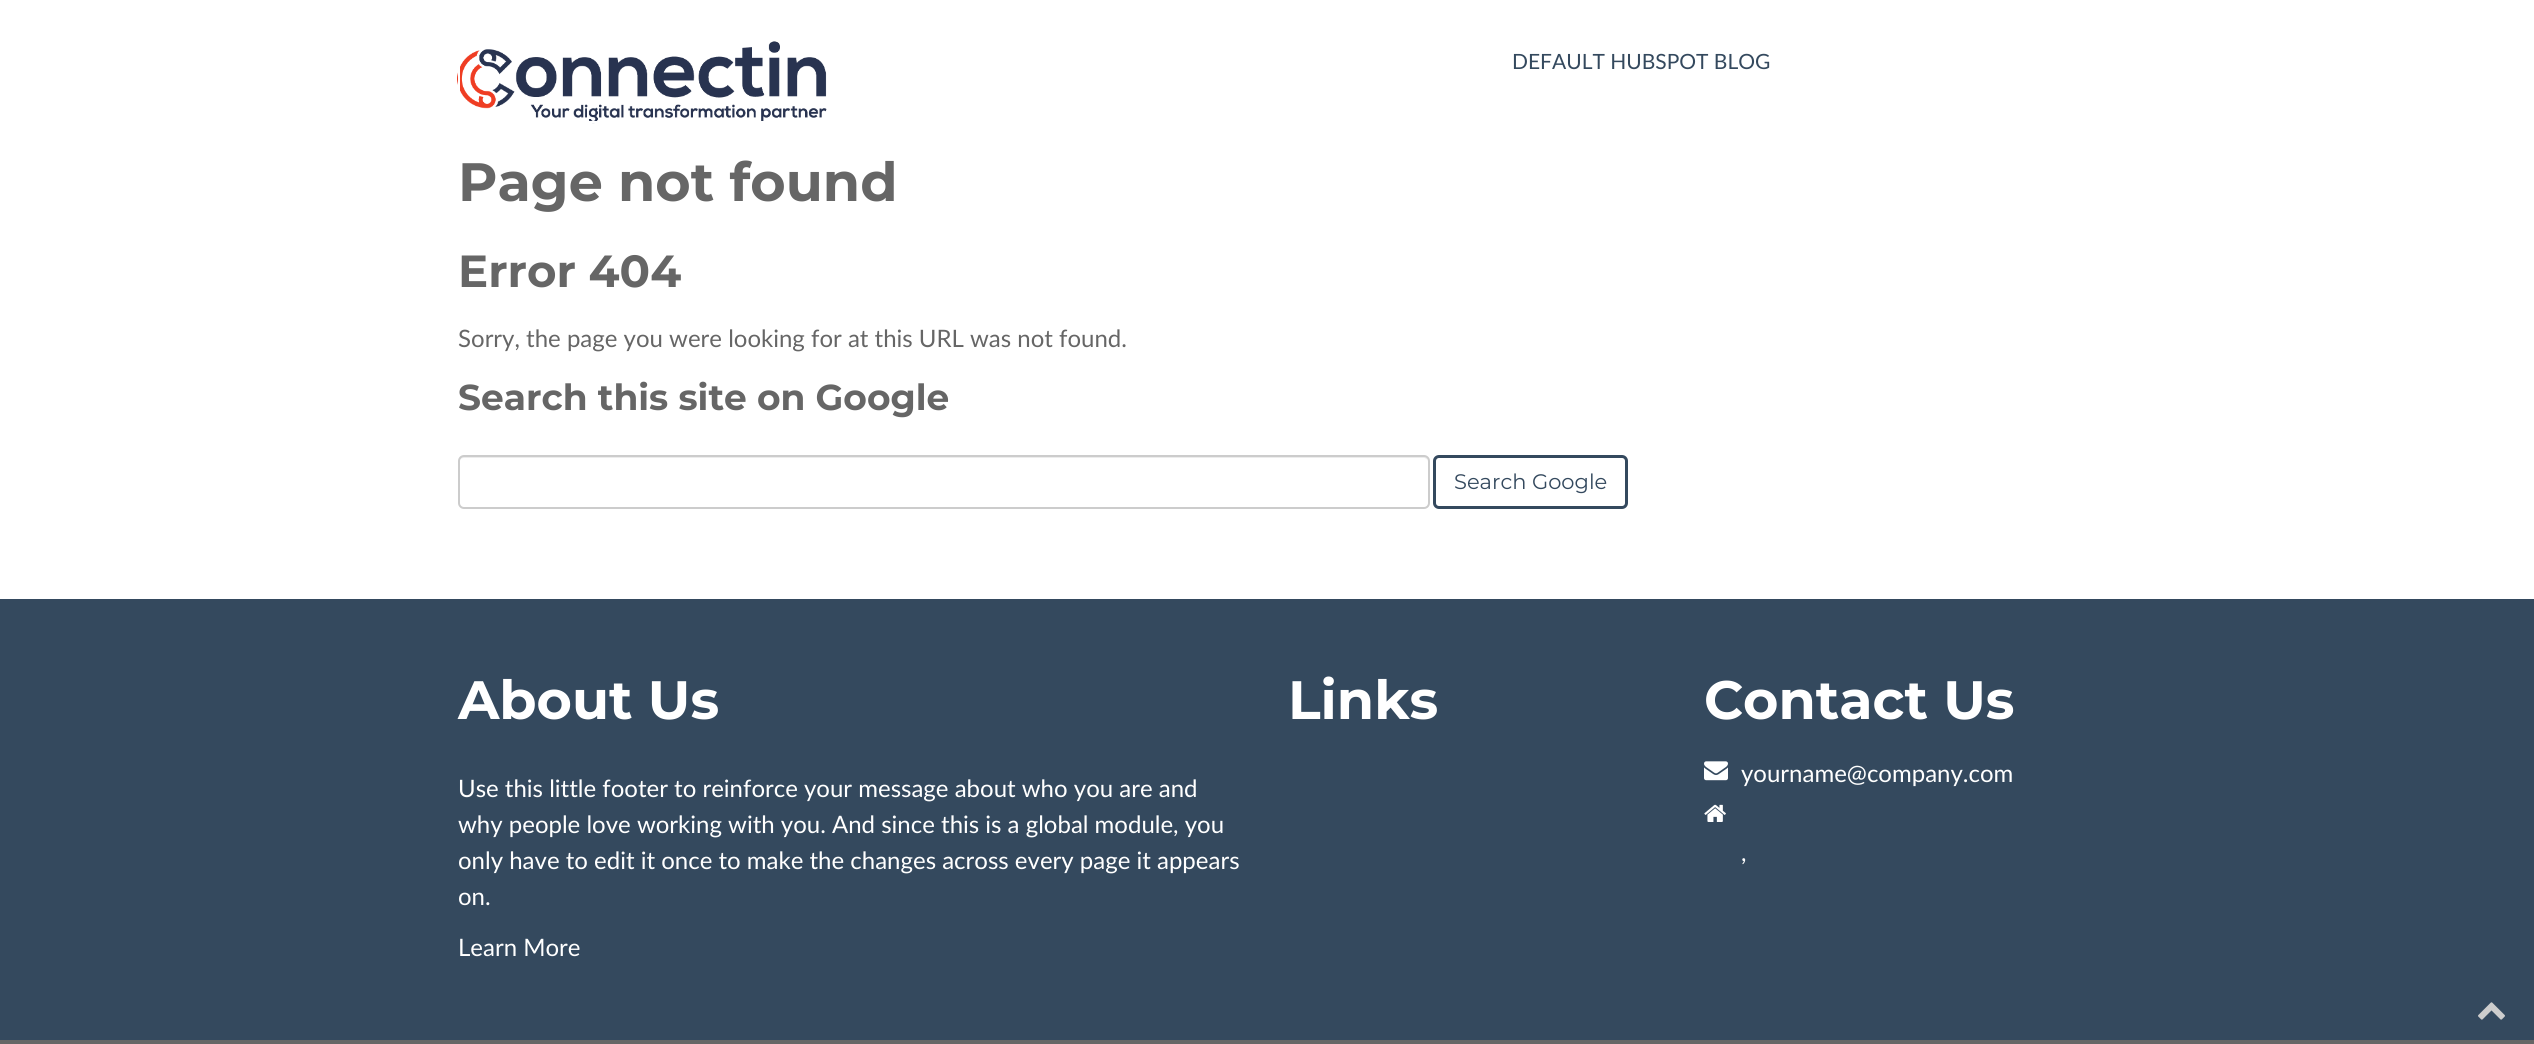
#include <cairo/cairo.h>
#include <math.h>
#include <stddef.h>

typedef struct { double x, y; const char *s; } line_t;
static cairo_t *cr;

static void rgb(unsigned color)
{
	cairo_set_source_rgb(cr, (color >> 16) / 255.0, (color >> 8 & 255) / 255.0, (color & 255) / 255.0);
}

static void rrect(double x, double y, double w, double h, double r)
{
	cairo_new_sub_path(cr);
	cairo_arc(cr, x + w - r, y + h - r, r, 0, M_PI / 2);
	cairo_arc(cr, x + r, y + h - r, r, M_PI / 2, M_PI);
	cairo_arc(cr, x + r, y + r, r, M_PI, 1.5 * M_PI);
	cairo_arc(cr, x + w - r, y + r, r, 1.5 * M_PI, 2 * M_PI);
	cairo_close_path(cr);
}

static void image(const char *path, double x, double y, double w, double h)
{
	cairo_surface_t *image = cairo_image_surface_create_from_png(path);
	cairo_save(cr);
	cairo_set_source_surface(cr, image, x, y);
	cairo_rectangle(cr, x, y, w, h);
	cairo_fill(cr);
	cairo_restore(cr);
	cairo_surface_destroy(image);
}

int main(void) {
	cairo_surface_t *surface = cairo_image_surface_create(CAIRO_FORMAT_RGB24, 2534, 1044);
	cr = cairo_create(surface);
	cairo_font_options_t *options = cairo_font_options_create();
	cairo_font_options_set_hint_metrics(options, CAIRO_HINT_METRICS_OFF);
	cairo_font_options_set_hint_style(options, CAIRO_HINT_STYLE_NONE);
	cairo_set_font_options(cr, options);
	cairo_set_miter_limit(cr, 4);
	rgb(0xffffff);
	cairo_paint(cr);
	image("img/1.png", 457, 41, 370, 83);
	cairo_rectangle(cr, 459, 31, 371, 91);
	rgb(0xffffff);
	cairo_stroke(cr);
	rgb(0xececec);
	cairo_new_path(cr);
	cairo_move_to(cr, 464, 458);
	cairo_line_to(cr, 1424, 458);
	cairo_curve_to(cr, 1426, 458, 1428, 460, 1428, 462);
	cairo_curve_to(cr, 1428, 459, 1426, 456, 1423, 456);
	cairo_line_to(cr, 464, 456);
	cairo_curve_to(cr, 461, 456, 459, 459, 459, 462);
	cairo_curve_to(cr, 459, 460, 461, 458, 464, 458);
	cairo_close_path(cr);
	cairo_fill(cr);
	rrect(459, 456, 970, 52, 5);
	rgb(0xcccccc);
	cairo_stroke(cr);
	rrect(1434.5, 456.5, 192, 51, 4.5);
	rgb(0x34495e);
	cairo_set_line_width(cr, 3);
	cairo_stroke(cr);
	cairo_rectangle(cr, 0, 599, 2534, 441);
	cairo_fill(cr);
	image("img/2.png", 1704, 761, 24, 20);
	image("img/3.png", 1704, 804, 22, 18);
	image("img/4.png", 2478, 1002, 27, 18);
	rgb(0x666666);
	cairo_rectangle(cr, 0, 1040, 2534, 4);
	cairo_fill(cr);
	cairo_select_font_face(cr, "Lato", CAIRO_FONT_SLANT_NORMAL, CAIRO_FONT_WEIGHT_NORMAL);
	cairo_set_font_size(cr, 21);
	rgb(0x34495e);
	cairo_move_to(cr, 1512, 69);
	cairo_show_text(cr, "DEFAULT HUBSPOT BLOG");
	cairo_select_font_face(cr, "Montserrat", CAIRO_FONT_SLANT_NORMAL, CAIRO_FONT_WEIGHT_BOLD);
	cairo_set_font_size(cr, 54);
	rgb(0x666666);
	cairo_move_to(cr, 458, 201);
	cairo_show_text(cr, "Page not found");
	cairo_set_font_size(cr, 45);
	cairo_move_to(cr, 458, 287);
	cairo_show_text(cr, "Error 404");
	cairo_select_font_face(cr, "Lato", CAIRO_FONT_SLANT_NORMAL, CAIRO_FONT_WEIGHT_NORMAL);
	cairo_set_font_size(cr, 24);
	cairo_move_to(cr, 458, 347);
	cairo_show_text(cr, "Sorry, the page you were looking for at this URL was not found.");
	cairo_select_font_face(cr, "Montserrat", CAIRO_FONT_SLANT_NORMAL, CAIRO_FONT_WEIGHT_BOLD);
	cairo_set_font_size(cr, 36);
	cairo_move_to(cr, 458, 410);
	cairo_show_text(cr, "Search this site on Google");
	cairo_select_font_face(cr, "Montserrat", CAIRO_FONT_SLANT_NORMAL, CAIRO_FONT_WEIGHT_NORMAL);
	cairo_set_font_size(cr, 21);
	rgb(0x34495e);
	cairo_move_to(cr, 1454, 489);
	cairo_show_text(cr, "Search Google");
	cairo_select_font_face(cr, "Montserrat", CAIRO_FONT_SLANT_NORMAL, CAIRO_FONT_WEIGHT_BOLD);
	cairo_set_font_size(cr, 54);
	rgb(0xffffff);
	cairo_move_to(cr, 458, 719);
	cairo_show_text(cr, "About Us");
	cairo_select_font_face(cr, "Lato", CAIRO_FONT_SLANT_NORMAL, CAIRO_FONT_WEIGHT_NORMAL);
	cairo_set_font_size(cr, 24);
	{
		static const line_t items[] = {
			{458, 797, "Use this little footer to reinforce your message about who you are and"},
			{458, 833, "why people love working with you. And since this is a global module, you"},
			{458, 869, "only have to edit it once to make the changes across every page it appears"},
			{458, 905, "on."},
			{458, 956, "Learn More"},
		};
		for (size_t i = 0; i < sizeof items / sizeof *items; i++) {
			cairo_move_to(cr, items[i].x, items[i].y);
			cairo_show_text(cr, items[i].s);
		}
	}
	cairo_select_font_face(cr, "Montserrat", CAIRO_FONT_SLANT_NORMAL, CAIRO_FONT_WEIGHT_BOLD);
	cairo_set_font_size(cr, 54);
	cairo_move_to(cr, 1288, 719);
	cairo_show_text(cr, "Links");
	cairo_move_to(cr, 1704, 719);
	cairo_show_text(cr, "Contact Us");
	cairo_select_font_face(cr, "Lato", CAIRO_FONT_SLANT_NORMAL, CAIRO_FONT_WEIGHT_NORMAL);
	cairo_set_font_size(cr, 24);
	cairo_move_to(cr, 1741, 782);
	cairo_show_text(cr, "yourname@company.com");
	cairo_move_to(cr, 1741, 861);
	cairo_show_text(cr, ",");
	cairo_surface_write_to_png(surface, "page.png");
	cairo_font_options_destroy(options);
	cairo_destroy(cr);
	cairo_surface_destroy(surface);
	return 0;
}
